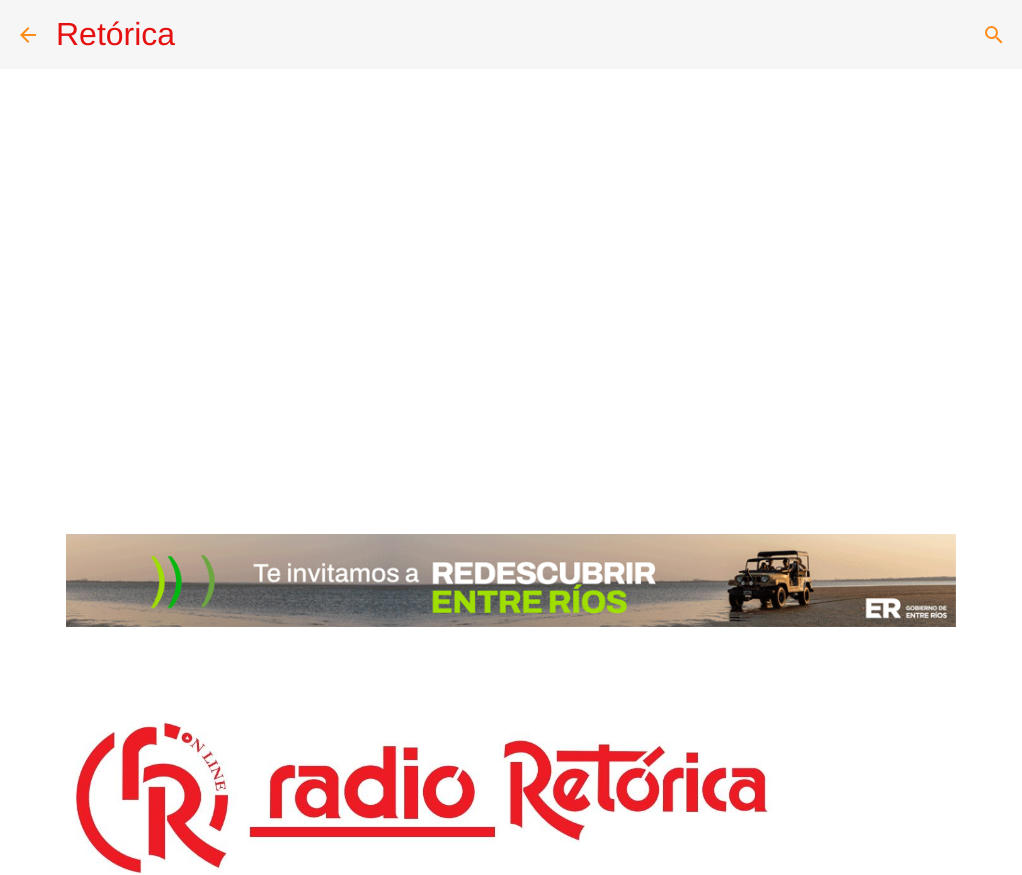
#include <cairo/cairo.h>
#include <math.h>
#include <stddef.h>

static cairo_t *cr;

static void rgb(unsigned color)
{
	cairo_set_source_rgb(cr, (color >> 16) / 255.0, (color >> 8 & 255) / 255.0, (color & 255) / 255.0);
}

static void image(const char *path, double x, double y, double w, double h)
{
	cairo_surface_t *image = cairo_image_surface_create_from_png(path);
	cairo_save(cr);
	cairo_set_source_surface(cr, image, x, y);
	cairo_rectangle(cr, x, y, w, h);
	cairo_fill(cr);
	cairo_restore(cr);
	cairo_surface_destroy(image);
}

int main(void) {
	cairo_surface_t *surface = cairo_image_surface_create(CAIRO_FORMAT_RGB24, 1022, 875);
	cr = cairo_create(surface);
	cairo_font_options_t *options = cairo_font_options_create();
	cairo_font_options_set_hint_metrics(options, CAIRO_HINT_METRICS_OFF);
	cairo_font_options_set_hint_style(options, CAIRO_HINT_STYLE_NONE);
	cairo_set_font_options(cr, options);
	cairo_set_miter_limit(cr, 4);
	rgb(0xffffff);
	cairo_paint(cr);
	rgb(0xf6f6f6);
	cairo_rectangle(cr, 0, 0, 1022, 69);
	cairo_fill(cr);
	image("img/1.png", 20, 27, 16, 16);
	image("img/2.png", 985, 26, 18, 18);
	image("img/3.png", 66, 534, 890, 93);
	image("img/4.png", 75, 721, 697, 153);
	cairo_select_font_face(cr, "Liberation Sans", CAIRO_FONT_SLANT_NORMAL, CAIRO_FONT_WEIGHT_NORMAL);
	cairo_set_font_size(cr, 32);
	rgb(0xe51110);
	cairo_move_to(cr, 56, 45);
	cairo_show_text(cr, "Retórica");
	cairo_surface_write_to_png(surface, "page.png");
	cairo_font_options_destroy(options);
	cairo_destroy(cr);
	cairo_surface_destroy(surface);
	return 0;
}
